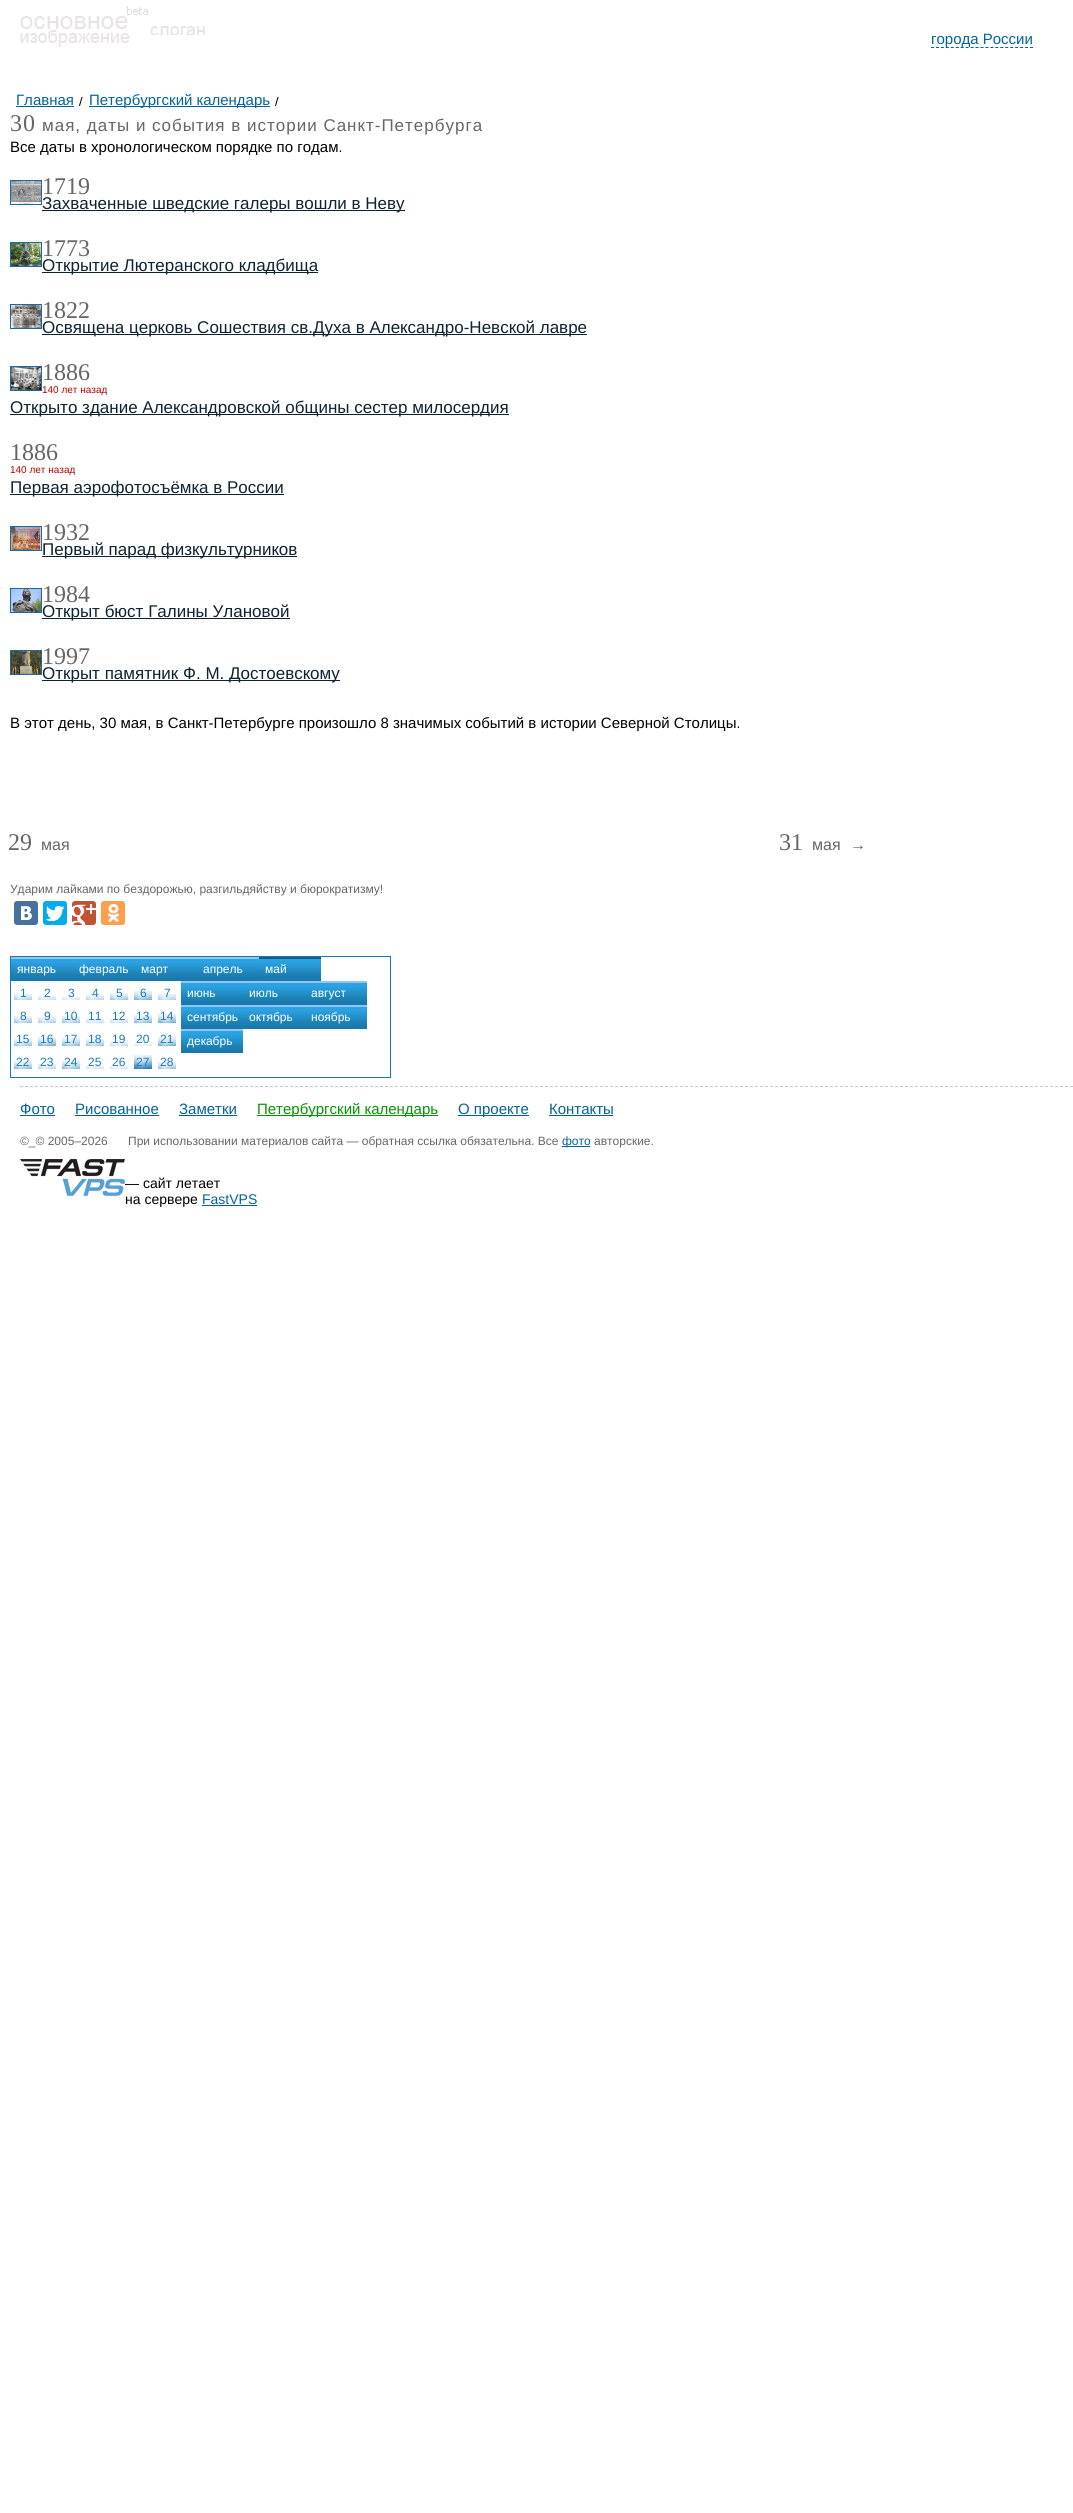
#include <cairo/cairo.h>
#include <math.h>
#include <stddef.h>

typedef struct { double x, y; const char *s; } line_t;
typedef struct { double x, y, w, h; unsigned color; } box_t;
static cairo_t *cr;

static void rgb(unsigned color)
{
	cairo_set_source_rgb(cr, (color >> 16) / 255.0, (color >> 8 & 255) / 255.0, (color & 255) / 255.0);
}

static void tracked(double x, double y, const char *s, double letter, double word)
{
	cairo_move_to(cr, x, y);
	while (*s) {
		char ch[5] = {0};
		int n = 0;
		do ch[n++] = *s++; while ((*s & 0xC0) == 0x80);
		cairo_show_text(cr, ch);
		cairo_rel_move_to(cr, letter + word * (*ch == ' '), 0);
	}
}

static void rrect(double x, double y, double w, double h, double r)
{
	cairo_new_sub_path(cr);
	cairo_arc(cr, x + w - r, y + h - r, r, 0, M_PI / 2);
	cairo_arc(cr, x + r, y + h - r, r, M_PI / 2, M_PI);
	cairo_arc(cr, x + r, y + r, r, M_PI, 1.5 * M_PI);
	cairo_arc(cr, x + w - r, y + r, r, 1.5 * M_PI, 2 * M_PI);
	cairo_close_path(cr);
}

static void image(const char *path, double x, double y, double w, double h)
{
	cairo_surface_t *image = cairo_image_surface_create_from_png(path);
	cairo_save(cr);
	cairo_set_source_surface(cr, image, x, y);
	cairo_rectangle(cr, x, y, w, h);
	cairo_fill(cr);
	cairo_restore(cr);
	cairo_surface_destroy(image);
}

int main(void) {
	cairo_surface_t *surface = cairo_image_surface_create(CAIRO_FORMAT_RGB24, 1073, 2513);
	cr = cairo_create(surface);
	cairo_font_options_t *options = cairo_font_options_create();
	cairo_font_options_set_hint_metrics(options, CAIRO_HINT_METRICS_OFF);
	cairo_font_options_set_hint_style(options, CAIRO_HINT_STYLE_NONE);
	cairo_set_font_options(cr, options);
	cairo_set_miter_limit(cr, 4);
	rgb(0xffffff);
	cairo_paint(cr);
	image("img/1.png", 20, 6, 128, 41);
	image("img/2.png", 150, 26, 55, 9);
	cairo_new_path(cr);
	cairo_move_to(cr, 931, 47.5);
	cairo_line_to(cr, 1033, 47.5);
	rgb(0x02629a);
	cairo_set_line_width(cr, 1);
	cairo_set_dash(cr, (double[]){3, 1.95}, 2, 0);
	cairo_stroke(cr);
	cairo_rectangle(cr, 16, 106, 58, 1);
	cairo_fill(cr);
	image("img/3.png", 79, 97, 4, 9);
	cairo_rectangle(cr, 89, 106, 181, 1);
	cairo_fill(cr);
	image("img/3.png", 275, 97, 4, 9);
	cairo_rectangle(cr, 10.5, 180.5, 31, 24);
	rgb(0x20699e);
	cairo_set_dash(cr, NULL, 0, 0);
	cairo_stroke(cr);
	image("img/4.png", 11, 181, 30, 23);
	rgb(0x0f2331);
	cairo_rectangle(cr, 42, 210, 363, 1);
	cairo_fill(cr);
	cairo_rectangle(cr, 10.5, 242.5, 31, 24);
	rgb(0x20699e);
	cairo_stroke(cr);
	image("img/5.png", 11, 243, 30, 23);
	rgb(0x0f2331);
	cairo_rectangle(cr, 42, 272, 276, 1);
	cairo_fill(cr);
	cairo_rectangle(cr, 10.5, 304.5, 31, 24);
	rgb(0x20699e);
	cairo_stroke(cr);
	image("img/6.png", 11, 305, 30, 23);
	rgb(0x0f2331);
	cairo_rectangle(cr, 42, 334, 545, 1);
	cairo_fill(cr);
	cairo_rectangle(cr, 10.5, 366.5, 31, 24);
	rgb(0x20699e);
	cairo_stroke(cr);
	image("img/7.png", 11, 367, 30, 23);
	rgb(0x0f2331);
	cairo_rectangle(cr, 10, 414, 499, 1);
	cairo_fill(cr);
	cairo_rectangle(cr, 10, 494, 274, 1);
	cairo_fill(cr);
	cairo_rectangle(cr, 10.5, 526.5, 31, 24);
	rgb(0x20699e);
	cairo_stroke(cr);
	image("img/8.png", 11, 527, 30, 23);
	rgb(0x0f2331);
	cairo_rectangle(cr, 42, 556, 255, 1);
	cairo_fill(cr);
	cairo_rectangle(cr, 10.5, 588.5, 31, 24);
	rgb(0x20699e);
	cairo_stroke(cr);
	image("img/9.png", 11, 589, 30, 23);
	rgb(0x0f2331);
	cairo_rectangle(cr, 42, 618, 248, 1);
	cairo_fill(cr);
	cairo_rectangle(cr, 10.5, 650.5, 31, 24);
	rgb(0x20699e);
	cairo_stroke(cr);
	image("img/10.png", 11, 651, 30, 23);
	rgb(0x0f2331);
	cairo_rectangle(cr, 42, 680, 298, 1);
	cairo_fill(cr);
	rgb(0x48729e);
	rrect(14, 901, 24, 24, 3);
	cairo_fill(cr);
	image("img/11.png", 21, 906, 11, 14);
	rgb(0x00aced);
	rrect(43, 901, 24, 24, 3);
	cairo_fill(cr);
	image("img/12.png", 46, 906, 18, 15);
	rgb(0xc25234);
	rrect(72, 901, 24, 24, 3);
	cairo_fill(cr);
	image("img/13.png", 72, 904, 24, 21);
	rgb(0xff9f4d);
	rrect(101, 901, 24, 24, 3);
	cairo_fill(cr);
	image("img/14.png", 108, 904, 11, 18);
	cairo_rectangle(cr, 10.5, 956.5, 380, 121);
	rgb(0x1a7aad);
	cairo_stroke(cr);
	rgb(0x2ba3e2);
	cairo_rectangle(cr, 11, 959, 248, 4);
	cairo_fill(cr);
	image("img/15.png", 11, 963, 62, 16);
	rgb(0x93c3ff);
	cairo_rectangle(cr, 11, 957, 248, 2);
	cairo_fill(cr);
	rgb(0x1a7aad);
	cairo_rectangle(cr, 11, 979, 248, 2);
	cairo_fill(cr);
	image("img/15.png", 73, 963, 62, 16);
	image("img/15.png", 135, 963, 62, 16);
	image("img/15.png", 197, 963, 62, 16);
	cairo_rectangle(cr, 259, 976, 62, 5);
	cairo_fill(cr);
	image("img/16.png", 259, 959, 62, 17);
	rgb(0x0a5f8c);
	cairo_rectangle(cr, 259, 957, 62, 2);
	cairo_fill(cr);
	image("img/17.png", 14, 994, 18, 6);
	image("img/18.png", 38, 996, 18, 4);
	image("img/19.png", 62, 997, 18, 3);
	image("img/20.png", 86, 995, 18, 5);
	image("img/21.png", 110, 993, 18, 7);
	image("img/22.png", 134, 991, 18, 9);
	image("img/17.png", 158, 994, 18, 6);
	image("img/21.png", 14, 1016, 18, 7);
	image("img/17.png", 38, 1017, 18, 6);
	image("img/21.png", 62, 1016, 18, 7);
	image("img/18.png", 86, 1019, 18, 4);
	image("img/18.png", 110, 1019, 18, 4);
	image("img/23.png", 134, 1015, 18, 8);
	image("img/22.png", 158, 1014, 18, 9);
	image("img/21.png", 14, 1039, 18, 7);
	image("img/22.png", 38, 1037, 18, 9);
	image("img/23.png", 62, 1038, 18, 8);
	image("img/21.png", 86, 1039, 18, 7);
	image("img/18.png", 110, 1042, 18, 4);
	image("img/24.png", 134, 1044, 18, 2);
	image("img/22.png", 158, 1037, 18, 9);
	image("img/23.png", 14, 1061, 18, 8);
	image("img/20.png", 38, 1064, 18, 5);
	image("img/23.png", 62, 1061, 18, 8);
	image("img/19.png", 86, 1066, 18, 3);
	image("img/19.png", 110, 1066, 18, 3);
	image("img/25.png", 134, 1055, 18, 14);
	image("img/21.png", 158, 1062, 18, 7);
	rgb(0x2ba3e2);
	cairo_rectangle(cr, 181, 983, 186, 4);
	cairo_fill(cr);
	image("img/15.png", 181, 987, 62, 16);
	rgb(0x93c3ff);
	cairo_rectangle(cr, 181, 981, 186, 2);
	cairo_fill(cr);
	rgb(0x1a7aad);
	cairo_rectangle(cr, 181, 1003, 186, 2);
	cairo_fill(cr);
	image("img/15.png", 243, 987, 62, 16);
	image("img/15.png", 305, 987, 62, 16);
	rgb(0x2ba3e2);
	cairo_rectangle(cr, 181, 1007, 186, 4);
	cairo_fill(cr);
	image("img/15.png", 181, 1011, 62, 16);
	rgb(0x93c3ff);
	cairo_rectangle(cr, 181, 1005, 186, 2);
	cairo_fill(cr);
	rgb(0x1a7aad);
	cairo_rectangle(cr, 181, 1027, 186, 2);
	cairo_fill(cr);
	image("img/15.png", 243, 1011, 62, 16);
	image("img/15.png", 305, 1011, 62, 16);
	rgb(0x2ba3e2);
	cairo_rectangle(cr, 181, 1031, 62, 4);
	cairo_fill(cr);
	image("img/15.png", 181, 1035, 62, 16);
	rgb(0x93c3ff);
	cairo_rectangle(cr, 181, 1029, 62, 2);
	cairo_fill(cr);
	rgb(0x1a7aad);
	cairo_rectangle(cr, 181, 1051, 62, 2);
	cairo_fill(cr);
	cairo_new_path(cr);
	cairo_move_to(cr, 20, 1086.5);
	cairo_line_to(cr, 1073, 1086.5);
	rgb(0xc7c7c7);
	cairo_set_dash(cr, (double[]){3, 2}, 2, 0);
	cairo_stroke(cr);
	{
		static const box_t items[] = {
			{20, 1115, 35, 1, 0x02629a},
			{75, 1115, 84, 1, 0x02629a},
			{179, 1115, 58, 1, 0x02629a},
			{257, 1115, 181, 1, 0x009600},
			{458, 1115, 71, 1, 0x02629a},
			{549, 1115, 64, 1, 0x02629a},
			{562, 1146, 28, 1, 0x02629a},
		};
		for (size_t i = 0; i < sizeof items / sizeof *items; i++) {
			rgb(items[i].color);
			cairo_rectangle(cr, items[i].x, items[i].y, items[i].w, items[i].h);
			cairo_fill(cr);
		}
	}
	image("img/26.png", 20, 1159, 105, 37);
	cairo_rectangle(cr, 202, 1205, 55, 1);
	cairo_fill(cr);
	cairo_select_font_face(cr, "Liberation Sans", CAIRO_FONT_SLANT_NORMAL, CAIRO_FONT_WEIGHT_NORMAL);
	cairo_set_font_size(cr, 15);
	{
		static const line_t items[] = {
			{931, 44, "города России"},
			{16, 105, "Главная"},
			{89, 105, "Петербургский календарь"},
		};
		for (size_t i = 0; i < sizeof items / sizeof *items; i++) {
			cairo_move_to(cr, items[i].x, items[i].y);
			cairo_show_text(cr, items[i].s);
		}
	}
	cairo_select_font_face(cr, "Liberation Serif", CAIRO_FONT_SLANT_NORMAL, CAIRO_FONT_WEIGHT_NORMAL);
	cairo_set_font_size(cr, 24);
	rgb(0x666666);
	tracked(10, 131, "30", 1, 0);
	cairo_select_font_face(cr, "Liberation Sans", CAIRO_FONT_SLANT_NORMAL, CAIRO_FONT_WEIGHT_NORMAL);
	cairo_set_font_size(cr, 17);
	tracked(42, 131, "мая, даты и события в истории Санкт-Петербурга", 1, 0);
	cairo_set_font_size(cr, 15);
	rgb(0x000000);
	cairo_move_to(cr, 10, 152);
	cairo_show_text(cr, "Все даты в хронологическом порядке по годам.");
	cairo_select_font_face(cr, "Liberation Serif", CAIRO_FONT_SLANT_NORMAL, CAIRO_FONT_WEIGHT_NORMAL);
	cairo_set_font_size(cr, 24);
	rgb(0x666666);
	cairo_move_to(cr, 42, 194);
	cairo_show_text(cr, "1719");
	cairo_select_font_face(cr, "Liberation Sans", CAIRO_FONT_SLANT_NORMAL, CAIRO_FONT_WEIGHT_NORMAL);
	cairo_set_font_size(cr, 17);
	rgb(0x0f2331);
	cairo_move_to(cr, 42, 209);
	cairo_show_text(cr, "Захваченные шведские галеры вошли в Неву");
	cairo_select_font_face(cr, "Liberation Serif", CAIRO_FONT_SLANT_NORMAL, CAIRO_FONT_WEIGHT_NORMAL);
	cairo_set_font_size(cr, 24);
	rgb(0x666666);
	cairo_move_to(cr, 42, 256);
	cairo_show_text(cr, "1773");
	cairo_select_font_face(cr, "Liberation Sans", CAIRO_FONT_SLANT_NORMAL, CAIRO_FONT_WEIGHT_NORMAL);
	cairo_set_font_size(cr, 17);
	rgb(0x0f2331);
	cairo_move_to(cr, 42, 271);
	cairo_show_text(cr, "Открытие Лютеранского кладбища");
	cairo_select_font_face(cr, "Liberation Serif", CAIRO_FONT_SLANT_NORMAL, CAIRO_FONT_WEIGHT_NORMAL);
	cairo_set_font_size(cr, 24);
	rgb(0x666666);
	cairo_move_to(cr, 42, 318);
	cairo_show_text(cr, "1822");
	cairo_select_font_face(cr, "Liberation Sans", CAIRO_FONT_SLANT_NORMAL, CAIRO_FONT_WEIGHT_NORMAL);
	cairo_set_font_size(cr, 17);
	rgb(0x0f2331);
	cairo_move_to(cr, 42, 333);
	cairo_show_text(cr, "Освящена церковь Сошествия св.Духа в Александро-Невской лавре");
	cairo_select_font_face(cr, "Liberation Serif", CAIRO_FONT_SLANT_NORMAL, CAIRO_FONT_WEIGHT_NORMAL);
	cairo_set_font_size(cr, 24);
	rgb(0x666666);
	cairo_move_to(cr, 42, 380);
	cairo_show_text(cr, "1886");
	cairo_select_font_face(cr, "Liberation Sans", CAIRO_FONT_SLANT_NORMAL, CAIRO_FONT_WEIGHT_NORMAL);
	cairo_set_font_size(cr, 10);
	rgb(0xb70101);
	cairo_move_to(cr, 42, 393);
	cairo_show_text(cr, "140 лет назад");
	cairo_set_font_size(cr, 17);
	rgb(0x0f2331);
	cairo_move_to(cr, 10, 413);
	cairo_show_text(cr, "Открыто здание Александровской общины сестер милосердия");
	cairo_select_font_face(cr, "Liberation Serif", CAIRO_FONT_SLANT_NORMAL, CAIRO_FONT_WEIGHT_NORMAL);
	cairo_set_font_size(cr, 24);
	rgb(0x666666);
	cairo_move_to(cr, 10, 460);
	cairo_show_text(cr, "1886");
	cairo_select_font_face(cr, "Liberation Sans", CAIRO_FONT_SLANT_NORMAL, CAIRO_FONT_WEIGHT_NORMAL);
	cairo_set_font_size(cr, 10);
	rgb(0xb70101);
	cairo_move_to(cr, 10, 473);
	cairo_show_text(cr, "140 лет назад");
	cairo_set_font_size(cr, 17);
	rgb(0x0f2331);
	cairo_move_to(cr, 10, 493);
	cairo_show_text(cr, "Первая аэрофотосъёмка в России");
	cairo_select_font_face(cr, "Liberation Serif", CAIRO_FONT_SLANT_NORMAL, CAIRO_FONT_WEIGHT_NORMAL);
	cairo_set_font_size(cr, 24);
	rgb(0x666666);
	cairo_move_to(cr, 42, 540);
	cairo_show_text(cr, "1932");
	cairo_select_font_face(cr, "Liberation Sans", CAIRO_FONT_SLANT_NORMAL, CAIRO_FONT_WEIGHT_NORMAL);
	cairo_set_font_size(cr, 17);
	rgb(0x0f2331);
	cairo_move_to(cr, 42, 555);
	cairo_show_text(cr, "Первый парад физкультурников");
	cairo_select_font_face(cr, "Liberation Serif", CAIRO_FONT_SLANT_NORMAL, CAIRO_FONT_WEIGHT_NORMAL);
	cairo_set_font_size(cr, 24);
	rgb(0x666666);
	cairo_move_to(cr, 42, 602);
	cairo_show_text(cr, "1984");
	cairo_select_font_face(cr, "Liberation Sans", CAIRO_FONT_SLANT_NORMAL, CAIRO_FONT_WEIGHT_NORMAL);
	cairo_set_font_size(cr, 17);
	rgb(0x0f2331);
	cairo_move_to(cr, 42, 617);
	cairo_show_text(cr, "Открыт бюст Галины Улановой");
	cairo_select_font_face(cr, "Liberation Serif", CAIRO_FONT_SLANT_NORMAL, CAIRO_FONT_WEIGHT_NORMAL);
	cairo_set_font_size(cr, 24);
	rgb(0x666666);
	cairo_move_to(cr, 42, 664);
	cairo_show_text(cr, "1997");
	cairo_select_font_face(cr, "Liberation Sans", CAIRO_FONT_SLANT_NORMAL, CAIRO_FONT_WEIGHT_NORMAL);
	cairo_set_font_size(cr, 17);
	rgb(0x0f2331);
	cairo_move_to(cr, 42, 679);
	cairo_show_text(cr, "Открыт памятник Ф. М. Достоевскому");
	cairo_set_font_size(cr, 15);
	rgb(0x000000);
	cairo_move_to(cr, 10, 728);
	cairo_show_text(cr, "В этот день, 30 мая, в Санкт-Петербурге произошло 8 значимых событий в истории Северной Столицы.");
	cairo_select_font_face(cr, "Liberation Serif", CAIRO_FONT_SLANT_NORMAL, CAIRO_FONT_WEIGHT_NORMAL);
	cairo_set_font_size(cr, 24);
	rgb(0x666666);
	cairo_move_to(cr, 8, 850);
	cairo_show_text(cr, "29");
	cairo_select_font_face(cr, "Liberation Sans", CAIRO_FONT_SLANT_NORMAL, CAIRO_FONT_WEIGHT_NORMAL);
	cairo_set_font_size(cr, 16);
	cairo_move_to(cr, 41, 850);
	cairo_show_text(cr, "мая");
	cairo_select_font_face(cr, "Liberation Serif", CAIRO_FONT_SLANT_NORMAL, CAIRO_FONT_WEIGHT_NORMAL);
	cairo_set_font_size(cr, 24);
	cairo_move_to(cr, 779, 850);
	cairo_show_text(cr, "31");
	cairo_select_font_face(cr, "Liberation Sans", CAIRO_FONT_SLANT_NORMAL, CAIRO_FONT_WEIGHT_NORMAL);
	cairo_set_font_size(cr, 16);
	cairo_move_to(cr, 812, 850);
	cairo_show_text(cr, "мая");
	cairo_move_to(cr, 850, 850);
	cairo_show_text(cr, "→");
	cairo_set_font_size(cr, 12);
	cairo_move_to(cr, 10, 893);
	cairo_show_text(cr, "Ударим лайками по бездорожью, разгильдяйству и бюрократизму!");
	rgb(0xffffff);
	{
		static const line_t items[] = {
			{17, 973, "январь"},
			{79, 973, "февраль"},
			{141, 973, "март"},
			{203, 973, "апрель"},
			{265, 973, "май"},
		};
		for (size_t i = 0; i < sizeof items / sizeof *items; i++) {
			cairo_move_to(cr, items[i].x, items[i].y);
			cairo_show_text(cr, items[i].s);
		}
	}
	rgb(0x1a7aad);
	{
		static const line_t items[] = {
			{20, 997, "1"},
			{44, 997, "2"},
			{68, 997, "3"},
			{92, 997, "4"},
			{116, 997, "5"},
			{140, 997, "6"},
			{164, 997, "7"},
			{20, 1020, "8"},
			{44, 1020, "9"},
			{64, 1020, "10"},
			{88, 1020, "11"},
			{112, 1020, "12"},
			{136, 1020, "13"},
			{160, 1020, "14"},
			{16, 1043, "15"},
			{40, 1043, "16"},
			{64, 1043, "17"},
			{88, 1043, "18"},
			{112, 1043, "19"},
			{136, 1043, "20"},
			{160, 1043, "21"},
			{16, 1066, "22"},
			{40, 1066, "23"},
			{64, 1066, "24"},
			{88, 1066, "25"},
			{112, 1066, "26"},
			{136, 1066, "27"},
			{160, 1066, "28"},
		};
		for (size_t i = 0; i < sizeof items / sizeof *items; i++) {
			cairo_move_to(cr, items[i].x, items[i].y);
			cairo_show_text(cr, items[i].s);
		}
	}
	rgb(0xffffff);
	{
		static const line_t items[] = {
			{187, 997, "июнь"},
			{249, 997, "июль"},
			{311, 997, "август"},
			{187, 1021, "сентябрь"},
			{249, 1021, "октябрь"},
			{311, 1021, "ноябрь"},
			{187, 1045, "декабрь"},
		};
		for (size_t i = 0; i < sizeof items / sizeof *items; i++) {
			cairo_move_to(cr, items[i].x, items[i].y);
			cairo_show_text(cr, items[i].s);
		}
	}
	cairo_set_font_size(cr, 15);
	rgb(0x02629a);
	{
		static const line_t items[] = {
			{20, 1114, "Фото"},
			{75, 1114, "Рисованное"},
			{179, 1114, "Заметки"},
		};
		for (size_t i = 0; i < sizeof items / sizeof *items; i++) {
			cairo_move_to(cr, items[i].x, items[i].y);
			cairo_show_text(cr, items[i].s);
		}
	}
	rgb(0x009600);
	cairo_move_to(cr, 257, 1114);
	cairo_show_text(cr, "Петербургский календарь");
	rgb(0x02629a);
	cairo_move_to(cr, 458, 1114);
	cairo_show_text(cr, "О проекте");
	cairo_move_to(cr, 549, 1114);
	cairo_show_text(cr, "Контакты");
	cairo_set_font_size(cr, 12);
	rgb(0x666666);
	cairo_move_to(cr, 20, 1145);
	cairo_show_text(cr, "©_© 2005–2026");
	cairo_move_to(cr, 128, 1145);
	cairo_show_text(cr, "При использовании материалов сайта — обратная ссылка обязательна. Все");
	rgb(0x02629a);
	cairo_move_to(cr, 562, 1145);
	cairo_show_text(cr, "фото");
	rgb(0x666666);
	cairo_move_to(cr, 594, 1145);
	cairo_show_text(cr, "авторские.");
	cairo_set_font_size(cr, 14);
	rgb(0x000000);
	cairo_move_to(cr, 125, 1188);
	cairo_show_text(cr, "— сайт летает");
	cairo_move_to(cr, 125, 1204);
	cairo_show_text(cr, "на сервере");
	rgb(0x02629a);
	cairo_move_to(cr, 202, 1204);
	cairo_show_text(cr, "FastVPS");
	cairo_surface_write_to_png(surface, "page.png");
	cairo_font_options_destroy(options);
	cairo_destroy(cr);
	cairo_surface_destroy(surface);
	return 0;
}
